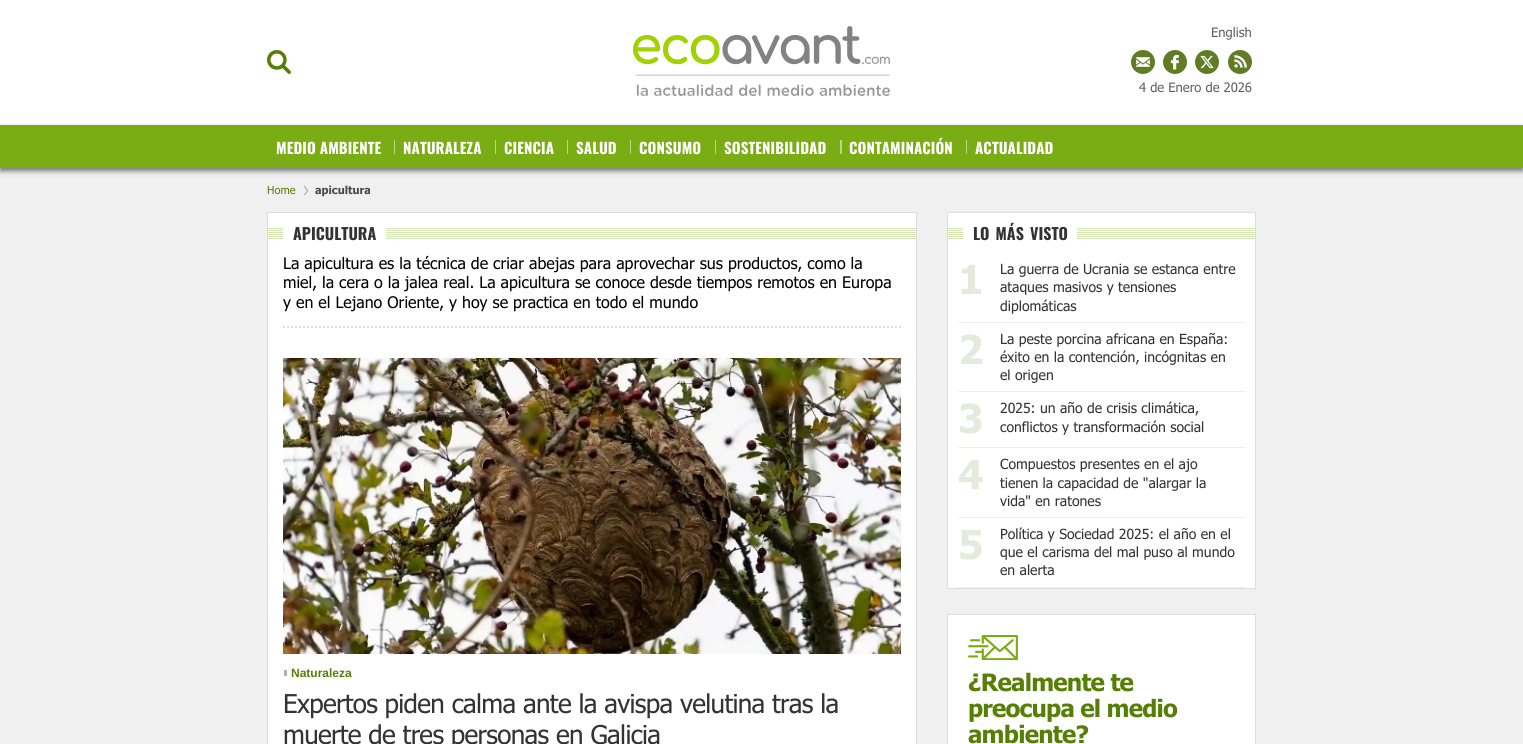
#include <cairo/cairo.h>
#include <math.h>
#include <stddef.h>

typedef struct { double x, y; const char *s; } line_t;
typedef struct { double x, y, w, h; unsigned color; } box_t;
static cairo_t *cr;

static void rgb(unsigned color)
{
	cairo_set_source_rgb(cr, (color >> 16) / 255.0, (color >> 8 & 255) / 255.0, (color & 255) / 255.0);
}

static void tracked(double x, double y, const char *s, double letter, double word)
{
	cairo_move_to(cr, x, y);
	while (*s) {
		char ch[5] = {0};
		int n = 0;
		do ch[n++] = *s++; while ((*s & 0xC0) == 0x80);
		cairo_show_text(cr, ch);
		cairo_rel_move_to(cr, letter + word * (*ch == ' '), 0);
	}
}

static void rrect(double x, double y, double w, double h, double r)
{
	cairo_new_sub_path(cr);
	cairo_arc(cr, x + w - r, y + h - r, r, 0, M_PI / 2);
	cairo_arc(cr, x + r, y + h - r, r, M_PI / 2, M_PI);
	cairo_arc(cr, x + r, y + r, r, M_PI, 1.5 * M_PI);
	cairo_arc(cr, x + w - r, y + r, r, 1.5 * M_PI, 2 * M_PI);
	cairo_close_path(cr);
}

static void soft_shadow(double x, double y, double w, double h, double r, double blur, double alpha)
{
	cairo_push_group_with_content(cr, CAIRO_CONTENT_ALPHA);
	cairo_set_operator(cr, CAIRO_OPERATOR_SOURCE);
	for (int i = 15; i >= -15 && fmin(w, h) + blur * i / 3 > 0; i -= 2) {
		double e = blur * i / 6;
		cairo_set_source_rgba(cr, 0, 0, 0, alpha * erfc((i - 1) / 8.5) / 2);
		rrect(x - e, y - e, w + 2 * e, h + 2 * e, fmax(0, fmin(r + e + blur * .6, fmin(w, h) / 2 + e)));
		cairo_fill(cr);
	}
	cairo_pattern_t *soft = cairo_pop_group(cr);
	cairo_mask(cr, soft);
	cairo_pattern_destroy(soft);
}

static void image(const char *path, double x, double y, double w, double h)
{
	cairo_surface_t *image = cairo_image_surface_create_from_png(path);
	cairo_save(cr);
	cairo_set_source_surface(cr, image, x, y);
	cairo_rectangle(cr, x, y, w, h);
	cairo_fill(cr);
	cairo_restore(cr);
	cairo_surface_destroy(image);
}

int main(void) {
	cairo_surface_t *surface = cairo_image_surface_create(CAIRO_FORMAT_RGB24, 1523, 744);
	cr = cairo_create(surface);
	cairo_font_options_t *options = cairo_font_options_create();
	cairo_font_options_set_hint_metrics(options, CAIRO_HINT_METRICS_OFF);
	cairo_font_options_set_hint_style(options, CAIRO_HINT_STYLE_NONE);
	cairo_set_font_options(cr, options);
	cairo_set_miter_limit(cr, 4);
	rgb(0xf0f0f0);
	cairo_paint(cr);
	rgb(0xffffff);
	cairo_rectangle(cr, 0, 0, 1523, 125);
	cairo_fill(cr);
	rgb(0xededed);
	cairo_rectangle(cr, 0, 168, 1523, 1);
	cairo_fill(cr);
	image("img/1.png", 267, 50, 24, 24);
	image("img/2.png", 633, 26, 257, 70);
	image("img/3.png", 1131, 50, 24, 24);
	image("img/4.png", 1163, 50, 24, 24);
	image("img/5.png", 1195, 50, 24, 24);
	image("img/6.png", 1228, 50, 24, 24);
	rgb(0x777777);
	soft_shadow(0, 128, 1523, 43, 0, 2.5, 1);
	{
		static const box_t items[] = {
			{0, 125, 1523, 43, 0x7aad14},
			{394, 140, 1, 14, 0xbed68c},
			{495, 140, 1, 14, 0xbed68c},
			{567, 140, 1, 14, 0xbed68c},
			{630, 140, 1, 14, 0xbed68c},
			{715, 140, 1, 14, 0xbed68c},
			{840, 140, 2, 14, 0xbed68c},
			{966, 140, 1, 14, 0xbed68c},
		};
		for (size_t i = 0; i < sizeof items / sizeof *items; i++) {
			rgb(items[i].color);
			cairo_rectangle(cr, items[i].x, items[i].y, items[i].w, items[i].h);
			cairo_fill(cr);
		}
	}
	image("img/7.png", 304, 186, 4, 9);
	rgb(0xffffff);
	cairo_rectangle(cr, 268, 213, 648, 531);
	cairo_fill(cr);
	image("img/8.png", 268, 228, 648, 11);
	{
		static const box_t items[] = {
			{267, 212, 650, 1, 0xdcdcdc},
			{916, 212, 1, 41, 0xdcdcdc},
			{267, 212, 1, 41, 0xdcdcdc},
			{283, 228, 103, 11, 0xffffff},
			{916, 253, 1, 491, 0xdcdcdc},
			{267, 253, 1, 491, 0xdcdcdc},
		};
		for (size_t i = 0; i < sizeof items / sizeof *items; i++) {
			rgb(items[i].color);
			cairo_rectangle(cr, items[i].x, items[i].y, items[i].w, items[i].h);
			cairo_fill(cr);
		}
	}
	cairo_new_path(cr);
	cairo_move_to(cr, 283, 327);
	cairo_line_to(cr, 901, 327);
	cairo_set_dash(cr, (double[]){2, 2}, 2, 0);
	cairo_stroke(cr);
	image("img/9.png", 283, 358, 618, 296);
	rgb(0xb0b0b0);
	cairo_rectangle(cr, 284, 670, 3, 6);
	cairo_fill(cr);
	rgb(0xffffff);
	cairo_rectangle(cr, 947.5, 212.5, 308, 376);
	cairo_fill_preserve(cr);
	rgb(0xdedede);
	cairo_set_line_width(cr, 1);
	cairo_set_dash(cr, NULL, 0, 0);
	cairo_stroke(cr);
	image("img/10.png", 948, 228, 307, 11);
	{
		static const box_t items[] = {
			{963, 228, 114, 11, 0xffffff},
			{958, 322, 287, 1, 0xededed},
			{958, 391, 287, 1, 0xededed},
			{958, 447, 287, 1, 0xededed},
			{958, 517, 287, 1, 0xededed},
			{958, 587, 287, 1, 0xededed},
		};
		for (size_t i = 0; i < sizeof items / sizeof *items; i++) {
			rgb(items[i].color);
			cairo_rectangle(cr, items[i].x, items[i].y, items[i].w, items[i].h);
			cairo_fill(cr);
		}
	}
	rgb(0xffffff);
	cairo_rectangle(cr, 947.5, 614.5, 308, 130);
	cairo_fill_preserve(cr);
	rgb(0xdedede);
	cairo_stroke(cr);
	image("img/11.png", 968, 635, 50, 25);
	cairo_select_font_face(cr, "Tahoma", CAIRO_FONT_SLANT_NORMAL, CAIRO_FONT_WEIGHT_NORMAL);
	cairo_set_font_size(cr, 13);
	rgb(0x606060);
	cairo_move_to(cr, 1211, 37);
	cairo_show_text(cr, "English");
	cairo_move_to(cr, 1139, 92);
	cairo_show_text(cr, "4 de Enero de 2026");
	cairo_select_font_face(cr, "Oswald", CAIRO_FONT_SLANT_NORMAL, CAIRO_FONT_WEIGHT_BOLD);
	cairo_set_font_size(cr, 15);
	rgb(0xffffff);
	{
		static const line_t items[] = {
			{276, 154, "MEDIO AMBIENTE"},
			{403, 154, "NATURALEZA"},
			{504, 154, "CIENCIA"},
			{576, 154, "SALUD"},
			{639, 154, "CONSUMO"},
			{724, 154, "SOSTENIBILIDAD"},
			{849, 154, "CONTAMINACIÓN"},
			{975, 154, "ACTUALIDAD"},
		};
		for (size_t i = 0; i < sizeof items / sizeof *items; i++) {
			tracked(items[i].x, items[i].y, items[i].s, 0.1, 0);
		}
	}
	cairo_select_font_face(cr, "Tahoma", CAIRO_FONT_SLANT_NORMAL, CAIRO_FONT_WEIGHT_NORMAL);
	cairo_set_font_size(cr, 11);
	rgb(0x577f06);
	cairo_move_to(cr, 267, 194);
	cairo_show_text(cr, "Home");
	cairo_select_font_face(cr, "Tahoma", CAIRO_FONT_SLANT_NORMAL, CAIRO_FONT_WEIGHT_BOLD);
	rgb(0x484848);
	cairo_move_to(cr, 315, 194);
	cairo_show_text(cr, "apicultura");
	cairo_select_font_face(cr, "Oswald", CAIRO_FONT_SLANT_NORMAL, CAIRO_FONT_WEIGHT_BOLD);
	cairo_set_font_size(cr, 16);
	rgb(0x333333);
	cairo_move_to(cr, 293, 240);
	cairo_show_text(cr, "APICULTURA");
	cairo_select_font_face(cr, "Tahoma", CAIRO_FONT_SLANT_NORMAL, CAIRO_FONT_WEIGHT_NORMAL);
	rgb(0x000000);
	{
		static const line_t items[] = {
			{283, 269, "La apicultura es la técnica de criar abejas para aprovechar sus productos, como la"},
			{283, 288, "miel, la cera o la jalea real. La apicultura se conoce desde tiempos remotos en Europa"},
			{283, 308, "y en el Lejano Oriente, y hoy se practica en todo el mundo"},
		};
		for (size_t i = 0; i < sizeof items / sizeof *items; i++) {
			cairo_move_to(cr, items[i].x, items[i].y);
			cairo_show_text(cr, items[i].s);
		}
	}
	cairo_select_font_face(cr, "Liberation Sans", CAIRO_FONT_SLANT_NORMAL, CAIRO_FONT_WEIGHT_BOLD);
	cairo_set_font_size(cr, 12);
	rgb(0x577f06);
	cairo_move_to(cr, 291, 677);
	cairo_show_text(cr, "Naturaleza");
	cairo_select_font_face(cr, "Tahoma", CAIRO_FONT_SLANT_NORMAL, CAIRO_FONT_WEIGHT_NORMAL);
	cairo_set_font_size(cr, 26);
	rgb(0x333333);
	tracked(283, 713, "Expertos piden calma ante la avispa velutina tras la", -0.65, 0);
	tracked(283, 744, "muerte de tres personas en Galicia", -0.65, 0);
	cairo_select_font_face(cr, "Oswald", CAIRO_FONT_SLANT_NORMAL, CAIRO_FONT_WEIGHT_BOLD);
	cairo_set_font_size(cr, 16);
	tracked(973, 240, "LO MÁS VISTO", 0, 2);
	cairo_select_font_face(cr, "Tahoma", CAIRO_FONT_SLANT_NORMAL, CAIRO_FONT_WEIGHT_BOLD);
	cairo_set_font_size(cr, 40);
	rgb(0xe6eadd);
	cairo_move_to(cr, 958, 294);
	cairo_show_text(cr, "1");
	cairo_select_font_face(cr, "Tahoma", CAIRO_FONT_SLANT_NORMAL, CAIRO_FONT_WEIGHT_NORMAL);
	cairo_set_font_size(cr, 14);
	rgb(0x333333);
	{
		static const line_t items[] = {
			{1000, 274, "La guerra de Ucrania se estanca entre"},
			{1000, 292, "ataques masivos y tensiones"},
			{1000, 311, "diplomáticas"},
		};
		for (size_t i = 0; i < sizeof items / sizeof *items; i++) {
			cairo_move_to(cr, items[i].x, items[i].y);
			cairo_show_text(cr, items[i].s);
		}
	}
	cairo_select_font_face(cr, "Tahoma", CAIRO_FONT_SLANT_NORMAL, CAIRO_FONT_WEIGHT_BOLD);
	cairo_set_font_size(cr, 40);
	rgb(0xe6eadd);
	cairo_move_to(cr, 958, 364);
	cairo_show_text(cr, "2");
	cairo_select_font_face(cr, "Tahoma", CAIRO_FONT_SLANT_NORMAL, CAIRO_FONT_WEIGHT_NORMAL);
	cairo_set_font_size(cr, 14);
	rgb(0x333333);
	{
		static const line_t items[] = {
			{1000, 344, "La peste porcina africana en España:"},
			{1000, 362, "éxito en la contención, incógnitas en"},
			{1000, 380, "el origen"},
		};
		for (size_t i = 0; i < sizeof items / sizeof *items; i++) {
			cairo_move_to(cr, items[i].x, items[i].y);
			cairo_show_text(cr, items[i].s);
		}
	}
	cairo_select_font_face(cr, "Tahoma", CAIRO_FONT_SLANT_NORMAL, CAIRO_FONT_WEIGHT_BOLD);
	cairo_set_font_size(cr, 40);
	rgb(0xe6eadd);
	cairo_move_to(cr, 958, 433);
	cairo_show_text(cr, "3");
	cairo_select_font_face(cr, "Tahoma", CAIRO_FONT_SLANT_NORMAL, CAIRO_FONT_WEIGHT_NORMAL);
	cairo_set_font_size(cr, 14);
	rgb(0x333333);
	cairo_move_to(cr, 1000, 413);
	cairo_show_text(cr, "2025: un año de crisis climática,");
	cairo_move_to(cr, 1000, 432);
	cairo_show_text(cr, "conflictos y transformación social");
	cairo_select_font_face(cr, "Tahoma", CAIRO_FONT_SLANT_NORMAL, CAIRO_FONT_WEIGHT_BOLD);
	cairo_set_font_size(cr, 40);
	rgb(0xe6eadd);
	cairo_move_to(cr, 958, 489);
	cairo_show_text(cr, "4");
	cairo_select_font_face(cr, "Tahoma", CAIRO_FONT_SLANT_NORMAL, CAIRO_FONT_WEIGHT_NORMAL);
	cairo_set_font_size(cr, 14);
	rgb(0x333333);
	{
		static const line_t items[] = {
			{1000, 469, "Compuestos presentes en el ajo"},
			{1000, 488, "tienen la capacidad de \"alargar la"},
			{1000, 506, "vida\" en ratones"},
		};
		for (size_t i = 0; i < sizeof items / sizeof *items; i++) {
			cairo_move_to(cr, items[i].x, items[i].y);
			cairo_show_text(cr, items[i].s);
		}
	}
	cairo_select_font_face(cr, "Tahoma", CAIRO_FONT_SLANT_NORMAL, CAIRO_FONT_WEIGHT_BOLD);
	cairo_set_font_size(cr, 40);
	rgb(0xe6eadd);
	cairo_move_to(cr, 958, 559);
	cairo_show_text(cr, "5");
	cairo_select_font_face(cr, "Tahoma", CAIRO_FONT_SLANT_NORMAL, CAIRO_FONT_WEIGHT_NORMAL);
	cairo_set_font_size(cr, 14);
	rgb(0x333333);
	{
		static const line_t items[] = {
			{1000, 539, "Política y Sociedad 2025: el año en el"},
			{1000, 557, "que el carisma del mal puso al mundo"},
			{1000, 575, "en alerta"},
		};
		for (size_t i = 0; i < sizeof items / sizeof *items; i++) {
			cairo_move_to(cr, items[i].x, items[i].y);
			cairo_show_text(cr, items[i].s);
		}
	}
	cairo_select_font_face(cr, "Tahoma", CAIRO_FONT_SLANT_NORMAL, CAIRO_FONT_WEIGHT_BOLD);
	cairo_set_font_size(cr, 24);
	rgb(0x577f06);
	{
		static const line_t items[] = {
			{968, 691, "¿Realmente te"},
			{968, 717, "preocupa el medio"},
			{968, 743, "ambiente?"},
		};
		for (size_t i = 0; i < sizeof items / sizeof *items; i++) {
			tracked(items[i].x, items[i].y, items[i].s, -0.75, 0);
		}
	}
	cairo_surface_write_to_png(surface, "page.png");
	cairo_font_options_destroy(options);
	cairo_destroy(cr);
	cairo_surface_destroy(surface);
	return 0;
}
